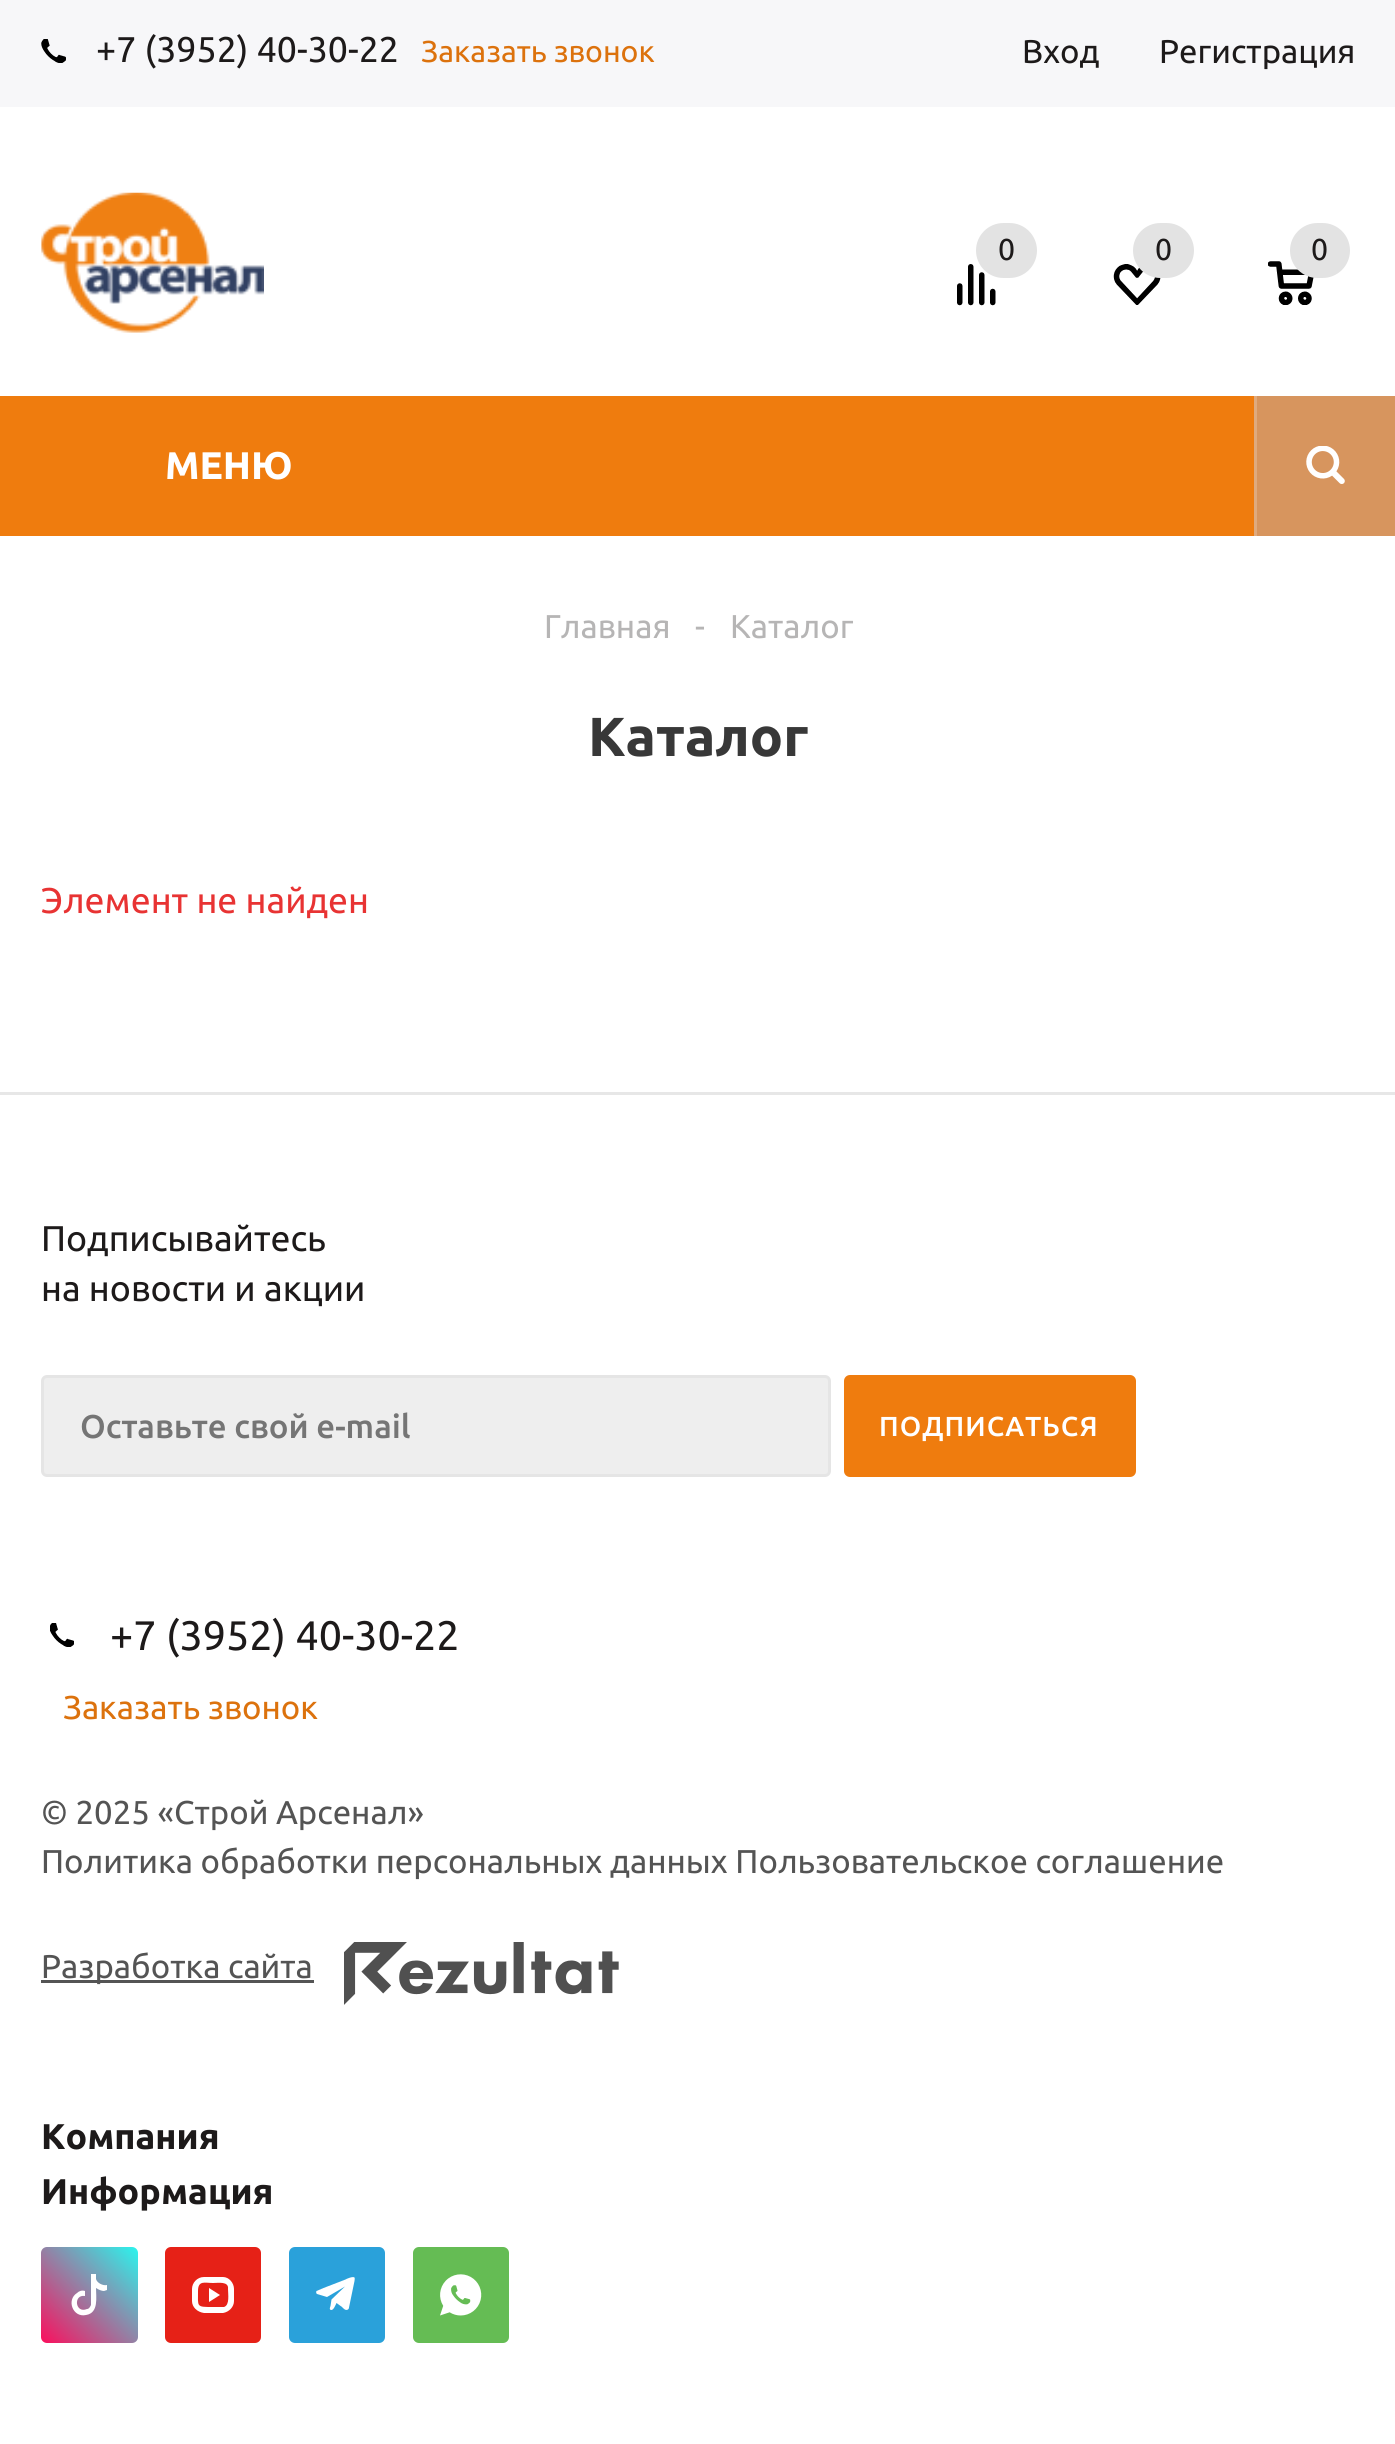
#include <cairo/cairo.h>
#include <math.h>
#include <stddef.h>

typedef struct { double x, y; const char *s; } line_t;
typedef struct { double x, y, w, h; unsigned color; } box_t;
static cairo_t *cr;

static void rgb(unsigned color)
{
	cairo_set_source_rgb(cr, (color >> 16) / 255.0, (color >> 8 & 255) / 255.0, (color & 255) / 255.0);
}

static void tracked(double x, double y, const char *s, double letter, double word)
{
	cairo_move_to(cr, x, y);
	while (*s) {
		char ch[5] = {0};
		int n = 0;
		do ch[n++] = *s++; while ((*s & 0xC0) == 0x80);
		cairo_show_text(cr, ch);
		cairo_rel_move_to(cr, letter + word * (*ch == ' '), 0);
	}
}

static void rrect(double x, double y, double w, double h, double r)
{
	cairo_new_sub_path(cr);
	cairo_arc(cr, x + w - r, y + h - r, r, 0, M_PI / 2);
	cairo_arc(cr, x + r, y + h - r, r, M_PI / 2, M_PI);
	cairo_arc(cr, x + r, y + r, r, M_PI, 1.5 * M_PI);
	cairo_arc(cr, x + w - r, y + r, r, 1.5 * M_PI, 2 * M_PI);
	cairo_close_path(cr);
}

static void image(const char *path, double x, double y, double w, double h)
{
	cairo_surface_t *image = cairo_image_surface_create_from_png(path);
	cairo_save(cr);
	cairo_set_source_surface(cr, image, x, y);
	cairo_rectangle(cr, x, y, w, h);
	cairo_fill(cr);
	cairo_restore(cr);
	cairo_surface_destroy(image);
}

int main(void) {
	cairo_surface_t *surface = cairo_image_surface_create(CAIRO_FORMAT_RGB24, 1395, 2444);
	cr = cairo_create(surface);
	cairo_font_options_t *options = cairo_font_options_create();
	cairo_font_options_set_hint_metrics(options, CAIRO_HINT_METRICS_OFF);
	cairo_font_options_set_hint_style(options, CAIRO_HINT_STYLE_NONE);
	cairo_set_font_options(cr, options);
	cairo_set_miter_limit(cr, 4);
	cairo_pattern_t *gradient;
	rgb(0xffffff);
	cairo_paint(cr);
	rgb(0xf7f7f9);
	cairo_rectangle(cr, 0, 0, 1395, 107);
	cairo_fill(cr);
	image("img/1.png", 41, 39, 25, 24);
	image("img/2.png", 41, 192, 223, 141);
	image("img/3.png", 957, 264, 39, 42);
	rgb(0xe3e3e3);
	rrect(976, 223, 61, 55, 27.5);
	cairo_fill(cr);
	image("img/4.png", 1113, 264, 48, 41);
	rrect(1133, 223, 61, 55, 27.5);
	cairo_fill(cr);
	image("img/5.png", 1268, 261, 46, 44);
	rrect(1290, 223, 60, 55, 27.5);
	cairo_fill(cr);
	{
		static const box_t items[] = {
			{0, 396, 1254, 140, 0xef7c0e},
			{1257, 396, 138, 140, 0xd7955e},
			{1254, 396, 3, 140, 0xdfaa7e},
		};
		for (size_t i = 0; i < sizeof items / sizeof *items; i++) {
			rgb(items[i].color);
			cairo_rectangle(cr, items[i].x, items[i].y, items[i].w, items[i].h);
			cairo_fill(cr);
		}
	}
	image("img/6.png", 1306, 446, 39, 38);
	rgb(0xe7e7e7);
	cairo_rectangle(cr, 0, 1092, 1395, 3);
	cairo_fill(cr);
	rgb(0xeeeeee);
	rrect(42.5, 1376.5, 787, 99, 4.5);
	cairo_fill_preserve(cr);
	rgb(0xe5e5e5);
	cairo_set_line_width(cr, 3);
	cairo_stroke(cr);
	rgb(0xef7c0e);
	rrect(844, 1375, 292, 102, 6);
	cairo_fill(cr);
	image("img/7.png", 50, 1623, 24, 24);
	rgb(0x545454);
	cairo_rectangle(cr, 41, 1980, 273, 3);
	cairo_fill(cr);
	image("img/8.png", 344, 1942, 275, 63);
	gradient = cairo_pattern_create_linear(41, 2343, 138, 2247);
	cairo_pattern_add_color_stop_rgba(gradient, 0, 0.988, 0.055, 0.361, 1);
	cairo_pattern_add_color_stop_rgba(gradient, 1, 0.165, 0.961, 0.933, 1);
	cairo_set_source(cr, gradient);
	cairo_pattern_destroy(gradient);
	rrect(41, 2247, 97, 96, 6);
	cairo_fill(cr);
	rgb(0xffffff);
	cairo_set_fill_rule(cr, CAIRO_FILL_RULE_EVEN_ODD);
	cairo_new_path(cr);
	cairo_move_to(cr, 104, 2291);
	cairo_curve_to(cr, 102, 2291, 99, 2290, 96, 2288);
	cairo_curve_to(cr, 96, 2297, 99, 2313, 86, 2315);
	cairo_curve_to(cr, 73, 2318, 66, 2300, 77, 2293);
	cairo_curve_to(cr, 79, 2291, 82, 2290, 85, 2291);
	cairo_line_to(cr, 85, 2296);
	cairo_curve_to(cr, 73, 2294, 75, 2314, 87, 2309);
	cairo_curve_to(cr, 89, 2309, 90, 2307, 91, 2305);
	cairo_line_to(cr, 91, 2274);
	cairo_line_to(cr, 96, 2274);
	cairo_line_to(cr, 96, 2279);
	cairo_curve_to(cr, 97, 2283, 103, 2286, 107, 2285);
	cairo_line_to(cr, 107, 2290);
	cairo_close_path(cr);
	cairo_fill(cr);
	rgb(0xe62117);
	rrect(165, 2247, 96, 96, 6);
	cairo_fill(cr);
	rgb(0xffffff);
	cairo_new_path(cr);
	cairo_move_to(cr, 223, 2313);
	cairo_line_to(cr, 204, 2313);
	cairo_curve_to(cr, 197, 2312, 192, 2307, 192, 2301);
	cairo_line_to(cr, 192, 2289);
	cairo_curve_to(cr, 192, 2283, 197, 2277, 204, 2277);
	cairo_line_to(cr, 223, 2277);
	cairo_curve_to(cr, 229, 2277, 234, 2283, 234, 2289);
	cairo_line_to(cr, 234, 2301);
	cairo_curve_to(cr, 234, 2307, 229, 2312, 223, 2313);
	cairo_close_path(cr);
	cairo_move_to(cr, 228, 2289);
	cairo_curve_to(cr, 229, 2281, 218, 2283, 213, 2283);
	cairo_curve_to(cr, 205, 2283, 198, 2280, 198, 2291);
	cairo_curve_to(cr, 198, 2307, 196, 2307, 213, 2307);
	cairo_line_to(cr, 224, 2307);
	cairo_curve_to(cr, 230, 2305, 228, 2294, 228, 2289);
	cairo_close_path(cr);
	cairo_move_to(cr, 209, 2288);
	cairo_line_to(cr, 220, 2295);
	cairo_line_to(cr, 209, 2302);
	cairo_close_path(cr);
	cairo_fill(cr);
	rgb(0x2aa1da);
	rrect(289, 2247, 96, 96, 6);
	cairo_fill(cr);
	rgb(0xffffff);
	cairo_new_path(cr);
	cairo_move_to(cr, 349, 2307.5);
	cairo_curve_to(cr, 349, 2308.5, 348.5, 2309, 348, 2309.5);
	cairo_curve_to(cr, 345.5, 2311, 343.5, 2308.5, 342, 2307);
	cairo_line_to(cr, 336.5, 2303);
	cairo_curve_to(cr, 335.5, 2305, 333.5, 2310.5, 331, 2310);
	cairo_curve_to(cr, 329, 2309.5, 330, 2307.5, 330.5, 2306);
	cairo_line_to(cr, 331.5, 2299.5);
	cairo_line_to(cr, 345, 2286.5);
	cairo_line_to(cr, 327, 2297);
	cairo_line_to(cr, 317, 2294);
	cairo_curve_to(cr, 316, 2293.5, 316, 2291.5, 316.5, 2291);
	cairo_line_to(cr, 323.5, 2288);
	cairo_line_to(cr, 345.5, 2279.5);
	cairo_curve_to(cr, 346, 2279, 353, 2276, 354.5, 2277.5);
	cairo_curve_to(cr, 355, 2278.5, 354.5, 2280, 354.5, 2281);
	cairo_close_path(cr);
	cairo_fill(cr);
	image("img/9.png", 413, 2247, 96, 96);
	cairo_select_font_face(cr, "Ubuntu", CAIRO_FONT_SLANT_NORMAL, CAIRO_FONT_WEIGHT_NORMAL);
	cairo_set_font_size(cr, 35.75);
	rgb(0x1d1a1a);
	cairo_move_to(cr, 96, 62);
	cairo_show_text(cr, "+7 (3952) 40-30-22");
	cairo_set_font_size(cr, 30.25);
	rgb(0xdc720d);
	cairo_move_to(cr, 421, 62);
	cairo_show_text(cr, "Заказать звонок");
	cairo_set_font_size(cr, 33);
	rgb(0x1d1a1a);
	cairo_move_to(cr, 1022, 63);
	cairo_show_text(cr, "Вход");
	cairo_move_to(cr, 1159, 63);
	cairo_show_text(cr, "Регистрация");
	cairo_set_font_size(cr, 30.25);
	{
		static const line_t items[] = {
			{998, 260, "0"},
			{1155, 260, "0"},
			{1311, 260, "0"},
		};
		for (size_t i = 0; i < sizeof items / sizeof *items; i++) {
			cairo_move_to(cr, items[i].x, items[i].y);
			cairo_show_text(cr, items[i].s);
		}
	}
	cairo_select_font_face(cr, "Ubuntu", CAIRO_FONT_SLANT_NORMAL, CAIRO_FONT_WEIGHT_BOLD);
	cairo_set_font_size(cr, 38.5);
	rgb(0xffffff);
	cairo_move_to(cr, 165, 479);
	cairo_show_text(cr, "МЕНЮ");
	cairo_select_font_face(cr, "Ubuntu", CAIRO_FONT_SLANT_NORMAL, CAIRO_FONT_WEIGHT_NORMAL);
	cairo_set_font_size(cr, 33);
	rgb(0xb6b5b5);
	{
		static const line_t items[] = {
			{544, 638, "Главная"},
			{695, 638, "-"},
			{730, 638, "Каталог"},
		};
		for (size_t i = 0; i < sizeof items / sizeof *items; i++) {
			cairo_move_to(cr, items[i].x, items[i].y);
			cairo_show_text(cr, items[i].s);
		}
	}
	cairo_select_font_face(cr, "Ubuntu", CAIRO_FONT_SLANT_NORMAL, CAIRO_FONT_WEIGHT_BOLD);
	cairo_set_font_size(cr, 55);
	rgb(0x383838);
	cairo_move_to(cr, 588, 756);
	cairo_show_text(cr, "Каталог");
	cairo_select_font_face(cr, "Ubuntu", CAIRO_FONT_SLANT_NORMAL, CAIRO_FONT_WEIGHT_NORMAL);
	cairo_set_font_size(cr, 35.75);
	rgb(0xe83333);
	cairo_move_to(cr, 41, 913);
	cairo_show_text(cr, "Элемент не найден");
	rgb(0x1d1a1a);
	cairo_move_to(cr, 41, 1251);
	cairo_show_text(cr, "Подписывайтесь");
	cairo_move_to(cr, 41, 1301);
	cairo_show_text(cr, "на новости и акции");
	cairo_select_font_face(cr, "Ubuntu Medium", CAIRO_FONT_SLANT_NORMAL, CAIRO_FONT_WEIGHT_NORMAL);
	cairo_set_font_size(cr, 33);
	rgb(0x757575);
	cairo_move_to(cr, 80, 1438);
	cairo_show_text(cr, "Оставьте свой e-mail");
	cairo_set_font_size(cr, 27.5);
	rgb(0xffffff);
	tracked(879, 1436, "ПОДПИСАТЬСЯ", 1.1, 0);
	cairo_select_font_face(cr, "Ubuntu", CAIRO_FONT_SLANT_NORMAL, CAIRO_FONT_WEIGHT_NORMAL);
	cairo_set_font_size(cr, 41.25);
	rgb(0x1d1a1a);
	cairo_move_to(cr, 110, 1650);
	cairo_show_text(cr, "+7 (3952) 40-30-22");
	cairo_set_font_size(cr, 33);
	rgb(0xdc720d);
	cairo_move_to(cr, 63, 1719);
	cairo_show_text(cr, "Заказать звонок");
	rgb(0x545454);
	{
		static const line_t items[] = {
			{41, 1824, "© 2025 «Строй Арсенал»"},
			{41, 1873, "Политика обработки персональных данных Пользовательское соглашение"},
			{41, 1978, "Разработка сайта"},
		};
		for (size_t i = 0; i < sizeof items / sizeof *items; i++) {
			cairo_move_to(cr, items[i].x, items[i].y);
			cairo_show_text(cr, items[i].s);
		}
	}
	cairo_select_font_face(cr, "Ubuntu", CAIRO_FONT_SLANT_NORMAL, CAIRO_FONT_WEIGHT_BOLD);
	cairo_set_font_size(cr, 35.75);
	rgb(0x1d1a1a);
	cairo_move_to(cr, 41, 2149);
	cairo_show_text(cr, "Компания");
	cairo_move_to(cr, 41, 2204);
	cairo_show_text(cr, "Информация");
	cairo_surface_write_to_png(surface, "page.png");
	cairo_font_options_destroy(options);
	cairo_destroy(cr);
	cairo_surface_destroy(surface);
	return 0;
}
